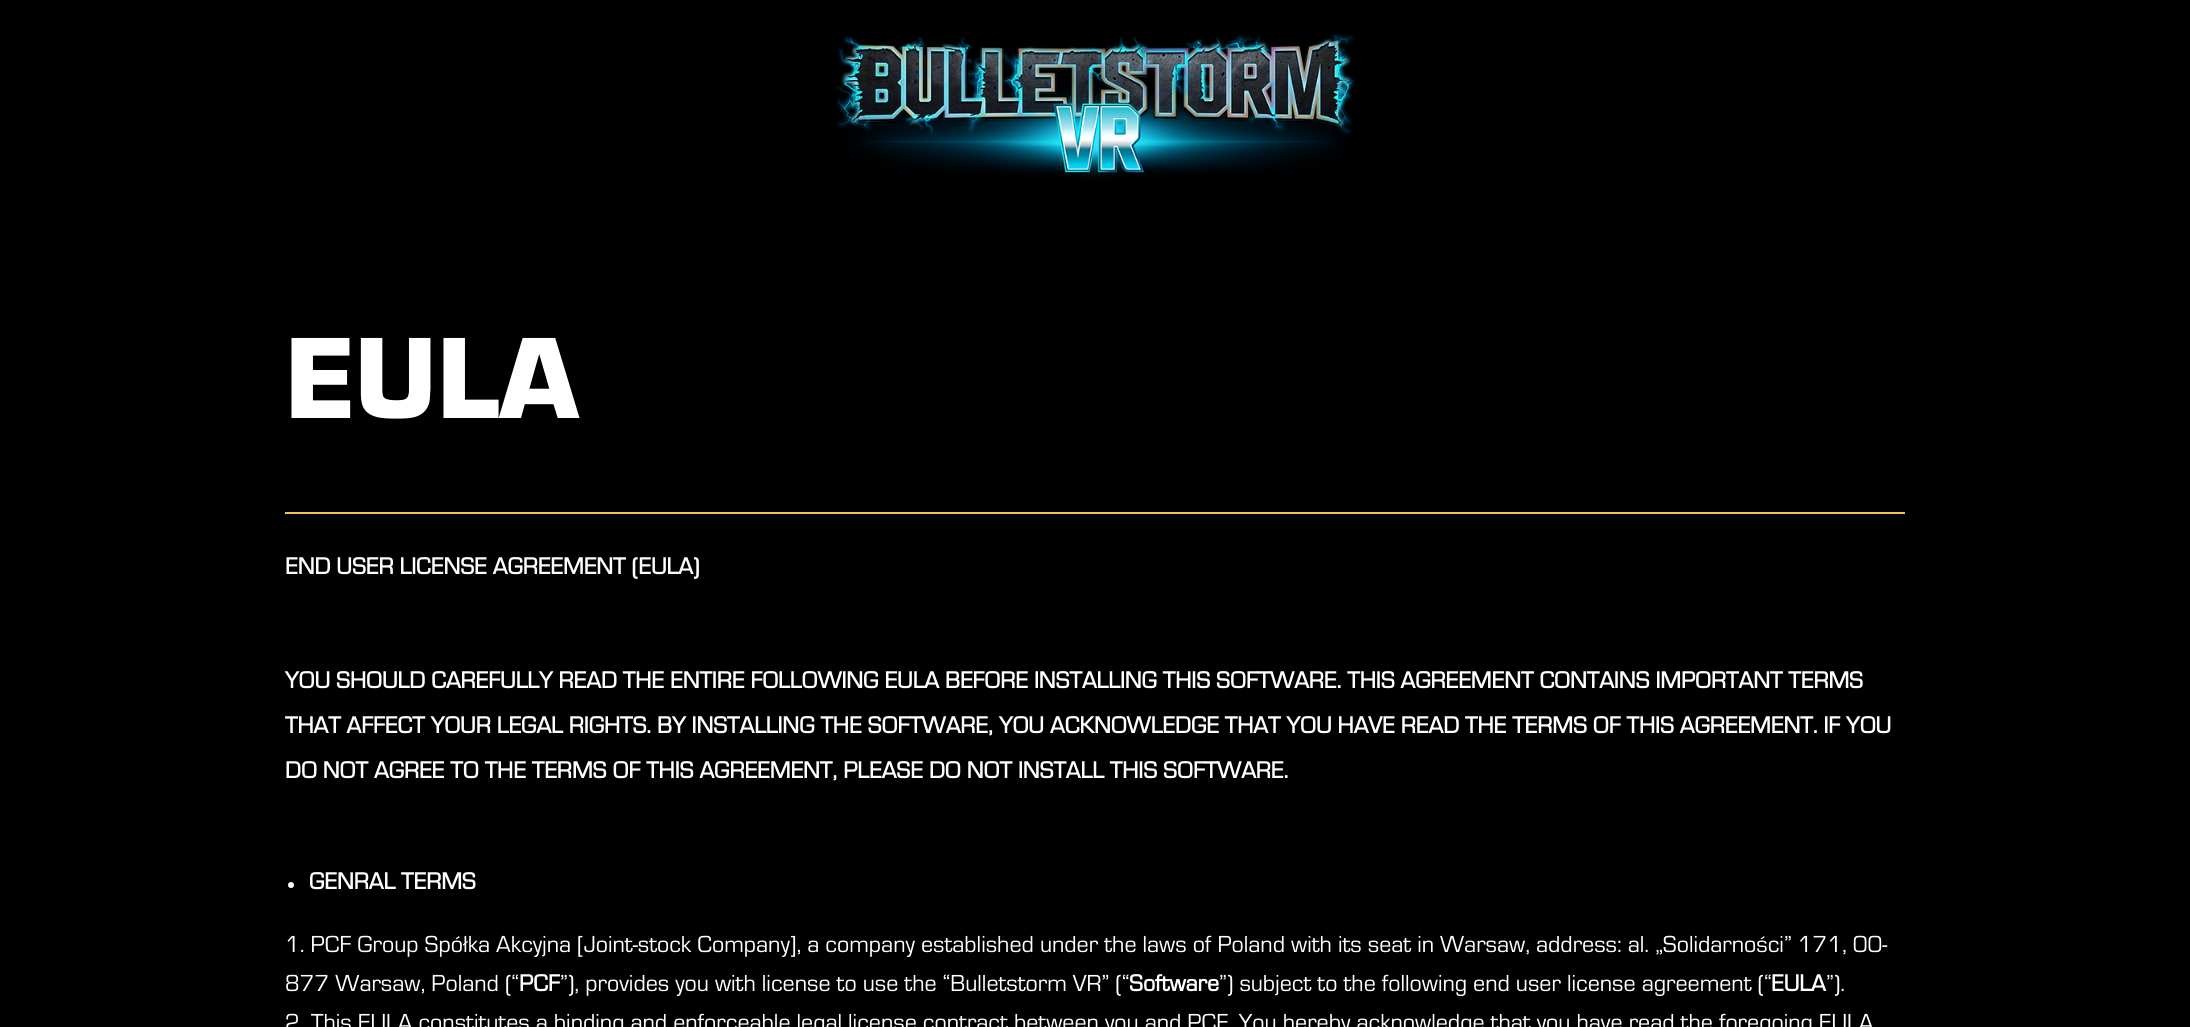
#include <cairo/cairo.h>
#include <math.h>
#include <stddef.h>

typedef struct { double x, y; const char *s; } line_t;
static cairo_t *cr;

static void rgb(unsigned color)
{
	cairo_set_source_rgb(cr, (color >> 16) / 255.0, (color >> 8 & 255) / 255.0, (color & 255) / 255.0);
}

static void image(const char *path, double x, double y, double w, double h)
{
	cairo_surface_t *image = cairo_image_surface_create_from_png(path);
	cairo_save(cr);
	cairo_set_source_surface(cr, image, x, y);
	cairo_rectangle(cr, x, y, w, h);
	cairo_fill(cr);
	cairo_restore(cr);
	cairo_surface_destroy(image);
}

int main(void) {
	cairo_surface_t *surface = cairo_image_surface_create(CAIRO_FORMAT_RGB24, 2190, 1027);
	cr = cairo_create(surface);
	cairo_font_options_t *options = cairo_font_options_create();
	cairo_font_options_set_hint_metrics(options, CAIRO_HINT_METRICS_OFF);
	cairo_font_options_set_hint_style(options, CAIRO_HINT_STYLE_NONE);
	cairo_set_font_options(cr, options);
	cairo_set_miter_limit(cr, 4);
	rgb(0x000000);
	cairo_paint(cr);
	image("img/1.png", 836, 33, 521, 147);
	rgb(0xeec65c);
	cairo_rectangle(cr, 285, 512, 1620, 2);
	cairo_fill(cr);
	rgb(0xffffff);
	cairo_arc(cr, 291, 885, 3, 0, 2 * M_PI);
	cairo_fill(cr);
	cairo_select_font_face(cr, "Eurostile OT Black", CAIRO_FONT_SLANT_NORMAL, CAIRO_FONT_WEIGHT_NORMAL);
	cairo_set_font_size(cr, 120);
	cairo_move_to(cr, 285, 418);
	cairo_show_text(cr, "EULA");
	cairo_select_font_face(cr, "Eurostile OT", CAIRO_FONT_SLANT_NORMAL, CAIRO_FONT_WEIGHT_BOLD);
	cairo_set_font_size(cr, 24.1);
	{
		static const line_t items[] = {
			{285, 574, "END USER LICENSE AGREEMENT (EULA)"},
			{285, 688, "YOU SHOULD CAREFULLY READ THE ENTIRE FOLLOWING EULA BEFORE INSTALLING THIS SOFTWARE. THIS AGREEMENT CONTAINS IMPORTANT TERMS"},
			{285, 733, "THAT AFFECT YOUR LEGAL RIGHTS. BY INSTALLING THE SOFTWARE, YOU ACKNOWLEDGE THAT YOU HAVE READ THE TERMS OF THIS AGREEMENT. IF YOU"},
			{285, 778, "DO NOT AGREE TO THE TERMS OF THIS AGREEMENT, PLEASE DO NOT INSTALL THIS SOFTWARE."},
			{309, 889, "GENRAL TERMS"},
		};
		for (size_t i = 0; i < sizeof items / sizeof *items; i++) {
			cairo_move_to(cr, items[i].x, items[i].y);
			cairo_show_text(cr, items[i].s);
		}
	}
	cairo_select_font_face(cr, "Eurostile OT", CAIRO_FONT_SLANT_NORMAL, CAIRO_FONT_WEIGHT_NORMAL);
	cairo_move_to(cr, 285, 952);
	cairo_show_text(cr, "1. PCF Group Spółka Akcyjna [Joint-stock Company], a company established under the laws of Poland with its seat in Warsaw, address: al. „Solidarności” 171, 00-");
	cairo_move_to(cr, 285, 991);
	cairo_show_text(cr, "877 Warsaw, Poland (“");
	cairo_select_font_face(cr, "Eurostile OT", CAIRO_FONT_SLANT_NORMAL, CAIRO_FONT_WEIGHT_BOLD);
	cairo_move_to(cr, 519, 991);
	cairo_show_text(cr, "PCF");
	cairo_select_font_face(cr, "Eurostile OT", CAIRO_FONT_SLANT_NORMAL, CAIRO_FONT_WEIGHT_NORMAL);
	cairo_move_to(cr, 560, 991);
	cairo_show_text(cr, "”), provides you with license to use the “Bulletstorm VR” (“");
	cairo_select_font_face(cr, "Eurostile OT", CAIRO_FONT_SLANT_NORMAL, CAIRO_FONT_WEIGHT_BOLD);
	cairo_move_to(cr, 1129, 991);
	cairo_show_text(cr, "Software");
	cairo_select_font_face(cr, "Eurostile OT", CAIRO_FONT_SLANT_NORMAL, CAIRO_FONT_WEIGHT_NORMAL);
	cairo_move_to(cr, 1219, 991);
	cairo_show_text(cr, "”) subject to the following end user license agreement (“");
	cairo_select_font_face(cr, "Eurostile OT", CAIRO_FONT_SLANT_NORMAL, CAIRO_FONT_WEIGHT_BOLD);
	cairo_move_to(cr, 1771, 991);
	cairo_show_text(cr, "EULA");
	cairo_select_font_face(cr, "Eurostile OT", CAIRO_FONT_SLANT_NORMAL, CAIRO_FONT_WEIGHT_NORMAL);
	{
		static const line_t items[] = {
			{1826, 991, "”)."},
			{285, 1030, "2"},
			{311, 1030, "This EULA constitutes a binding and enforceable legal license contract between you and PCF. You hereby acknowledge that you have read the foregoing EULA"},
		};
		for (size_t i = 0; i < sizeof items / sizeof *items; i++) {
			cairo_move_to(cr, items[i].x, items[i].y);
			cairo_show_text(cr, items[i].s);
		}
	}
	cairo_surface_write_to_png(surface, "page.png");
	cairo_font_options_destroy(options);
	cairo_destroy(cr);
	cairo_surface_destroy(surface);
	return 0;
}
